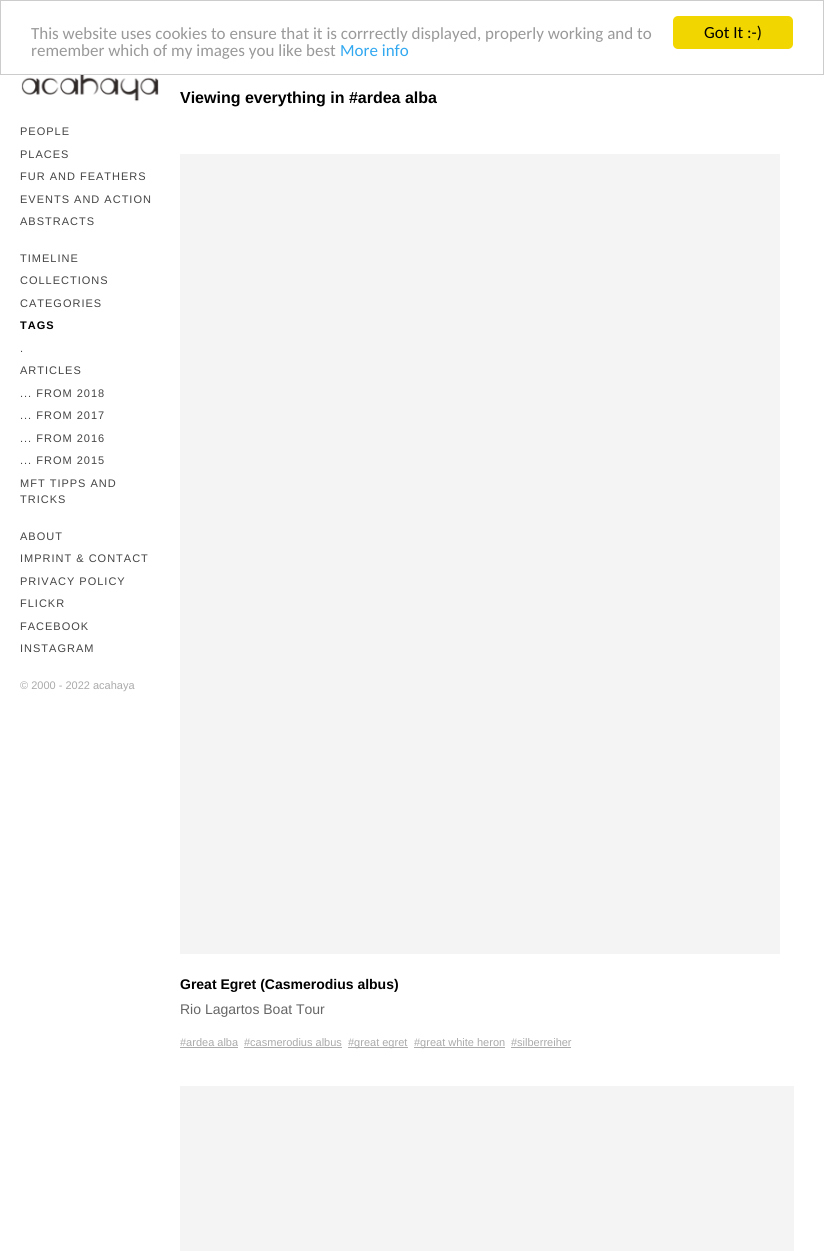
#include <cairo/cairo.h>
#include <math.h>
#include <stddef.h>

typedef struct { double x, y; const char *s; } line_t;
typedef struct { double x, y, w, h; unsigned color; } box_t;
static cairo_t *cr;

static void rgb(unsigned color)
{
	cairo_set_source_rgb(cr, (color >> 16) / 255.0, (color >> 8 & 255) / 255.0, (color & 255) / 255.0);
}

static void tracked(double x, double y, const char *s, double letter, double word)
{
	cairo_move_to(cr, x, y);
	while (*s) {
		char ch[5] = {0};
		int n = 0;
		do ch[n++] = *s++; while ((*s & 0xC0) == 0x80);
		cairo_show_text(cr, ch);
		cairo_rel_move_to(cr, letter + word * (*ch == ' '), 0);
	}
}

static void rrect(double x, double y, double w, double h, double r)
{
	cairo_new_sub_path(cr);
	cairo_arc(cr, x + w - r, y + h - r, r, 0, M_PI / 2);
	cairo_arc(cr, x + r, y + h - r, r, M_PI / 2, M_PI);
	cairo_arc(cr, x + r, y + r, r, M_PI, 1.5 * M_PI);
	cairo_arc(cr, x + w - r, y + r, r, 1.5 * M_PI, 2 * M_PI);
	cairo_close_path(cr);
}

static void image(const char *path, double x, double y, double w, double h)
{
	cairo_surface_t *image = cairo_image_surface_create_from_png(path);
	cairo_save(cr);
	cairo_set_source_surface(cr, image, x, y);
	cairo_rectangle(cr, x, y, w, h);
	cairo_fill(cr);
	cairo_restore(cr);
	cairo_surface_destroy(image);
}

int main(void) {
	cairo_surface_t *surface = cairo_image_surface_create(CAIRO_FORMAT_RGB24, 824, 1251);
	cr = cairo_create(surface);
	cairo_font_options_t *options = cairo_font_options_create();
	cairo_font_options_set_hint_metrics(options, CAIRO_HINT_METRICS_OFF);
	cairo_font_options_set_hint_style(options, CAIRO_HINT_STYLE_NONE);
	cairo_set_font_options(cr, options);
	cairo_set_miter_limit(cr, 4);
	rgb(0xffffff);
	cairo_paint(cr);
	cairo_rectangle(cr, 0.5, 0.5, 823, 74);
	rgb(0xcccccc);
	cairo_set_line_width(cr, 1);
	cairo_stroke(cr);
	rgb(0xf1d600);
	rrect(673, 16, 120, 33, 5);
	cairo_fill(cr);
	image("img/1.png", 21, 75, 138, 27);
	{
		static const box_t items[] = {
			{180, 154, 600, 800, 0xf4f4f4},
			{180, 1047, 58, 1, 0xaaaaaa},
			{244, 1047, 98, 1, 0xaaaaaa},
			{348, 1047, 60, 1, 0xaaaaaa},
			{414, 1047, 91, 1, 0xaaaaaa},
			{511, 1047, 60, 1, 0xaaaaaa},
			{180, 1086, 614, 165, 0xf4f4f4},
		};
		for (size_t i = 0; i < sizeof items / sizeof *items; i++) {
			rgb(items[i].color);
			cairo_rectangle(cr, items[i].x, items[i].y, items[i].w, items[i].h);
			cairo_fill(cr);
		}
	}
	cairo_select_font_face(cr, "Carlito", CAIRO_FONT_SLANT_NORMAL, CAIRO_FONT_WEIGHT_NORMAL);
	cairo_set_font_size(cr, 17);
	rgb(0x999999);
	cairo_move_to(cr, 31, 39);
	cairo_show_text(cr, "This website uses cookies to ensure that it is corrrectly displayed, properly working and to");
	cairo_move_to(cr, 31, 56);
	cairo_show_text(cr, "remember which of my images you like best");
	rgb(0x31a8f0);
	cairo_move_to(cr, 340, 56);
	cairo_show_text(cr, "More info");
	rgb(0x000000);
	cairo_move_to(cr, 704, 38);
	cairo_show_text(cr, "Got It :-)");
	cairo_select_font_face(cr, "Liberation Sans", CAIRO_FONT_SLANT_NORMAL, CAIRO_FONT_WEIGHT_NORMAL);
	cairo_set_font_size(cr, 11);
	rgb(0x444444);
	{
		static const line_t items[] = {
			{20, 135, "PEOPLE"},
			{20, 158, "PLACES"},
			{20, 180, "FUR AND FEATHERS"},
			{20, 203, "EVENTS AND ACTION"},
			{20, 225, "ABSTRACTS"},
			{20, 262, "TIMELINE"},
			{20, 284, "COLLECTIONS"},
			{20, 307, "CATEGORIES"},
		};
		for (size_t i = 0; i < sizeof items / sizeof *items; i++) {
			tracked(items[i].x, items[i].y, items[i].s, 1, 0);
		}
	}
	cairo_select_font_face(cr, "Liberation Sans", CAIRO_FONT_SLANT_NORMAL, CAIRO_FONT_WEIGHT_BOLD);
	rgb(0x000000);
	tracked(20, 329, "TAGS", 1, 0);
	cairo_select_font_face(cr, "Liberation Sans", CAIRO_FONT_SLANT_NORMAL, CAIRO_FONT_WEIGHT_NORMAL);
	rgb(0x444444);
	{
		static const line_t items[] = {
			{20, 352, "."},
			{20, 374, "ARTICLES"},
			{20, 397, "... FROM 2018"},
			{20, 419, "... FROM 2017"},
			{20, 442, "... FROM 2016"},
			{20, 464, "... FROM 2015"},
			{20, 487, "MFT TIPPS AND"},
			{20, 503, "TRICKS"},
			{20, 540, "ABOUT"},
			{20, 562, "IMPRINT & CONTACT"},
			{20, 585, "PRIVACY POLICY"},
			{20, 607, "FLICKR"},
			{20, 630, "FACEBOOK"},
			{20, 652, "INSTAGRAM"},
		};
		for (size_t i = 0; i < sizeof items / sizeof *items; i++) {
			tracked(items[i].x, items[i].y, items[i].s, 1, 0);
		}
	}
	rgb(0xaaaaaa);
	cairo_move_to(cr, 20, 689);
	cairo_show_text(cr, "© 2000 - 2022 acahaya");
	cairo_select_font_face(cr, "Liberation Sans", CAIRO_FONT_SLANT_NORMAL, CAIRO_FONT_WEIGHT_BOLD);
	cairo_set_font_size(cr, 16);
	rgb(0x000000);
	cairo_move_to(cr, 180, 103);
	cairo_show_text(cr, "Viewing everything in #ardea alba");
	cairo_set_font_size(cr, 14);
	cairo_move_to(cr, 180, 989);
	cairo_show_text(cr, "Great Egret (Casmerodius albus)");
	cairo_select_font_face(cr, "Liberation Sans", CAIRO_FONT_SLANT_NORMAL, CAIRO_FONT_WEIGHT_NORMAL);
	rgb(0x666666);
	cairo_move_to(cr, 180, 1014);
	cairo_show_text(cr, "Rio Lagartos Boat Tour");
	cairo_set_font_size(cr, 11);
	rgb(0xaaaaaa);
	{
		static const line_t items[] = {
			{180, 1046, "#ardea alba"},
			{244, 1046, "#casmerodius albus"},
			{348, 1046, "#great egret"},
			{414, 1046, "#great white heron"},
			{511, 1046, "#silberreiher"},
		};
		for (size_t i = 0; i < sizeof items / sizeof *items; i++) {
			cairo_move_to(cr, items[i].x, items[i].y);
			cairo_show_text(cr, items[i].s);
		}
	}
	cairo_surface_write_to_png(surface, "page.png");
	cairo_font_options_destroy(options);
	cairo_destroy(cr);
	cairo_surface_destroy(surface);
	return 0;
}
